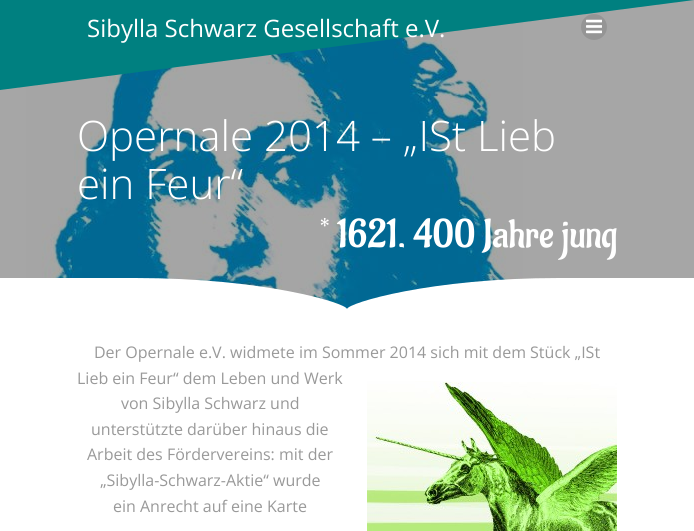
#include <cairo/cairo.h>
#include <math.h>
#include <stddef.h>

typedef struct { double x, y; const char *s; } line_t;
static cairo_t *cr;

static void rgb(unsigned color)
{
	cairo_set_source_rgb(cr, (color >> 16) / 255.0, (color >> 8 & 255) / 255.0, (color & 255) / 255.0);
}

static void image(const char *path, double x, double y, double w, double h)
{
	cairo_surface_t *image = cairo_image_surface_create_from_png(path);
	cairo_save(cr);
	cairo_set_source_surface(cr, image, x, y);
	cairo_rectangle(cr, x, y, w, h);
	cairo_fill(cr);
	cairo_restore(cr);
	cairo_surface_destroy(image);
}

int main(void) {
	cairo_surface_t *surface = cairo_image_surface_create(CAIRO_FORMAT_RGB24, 694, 531);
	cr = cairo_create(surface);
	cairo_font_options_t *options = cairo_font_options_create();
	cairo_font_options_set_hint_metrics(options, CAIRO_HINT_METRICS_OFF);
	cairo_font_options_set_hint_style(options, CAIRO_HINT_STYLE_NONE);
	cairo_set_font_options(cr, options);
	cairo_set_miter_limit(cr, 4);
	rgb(0xffffff);
	cairo_paint(cr);
	rgb(0xa6a6a6);
	cairo_rectangle(cr, 0, 0, 694, 279);
	cairo_fill(cr);
	image("img/2.png", 26, 22, 497, 287);
	rgb(0x008080);
	cairo_new_path(cr);
	cairo_move_to(cr, 694, 0);
	cairo_line_to(cr, 0, 0);
	cairo_line_to(cr, 0, 90);
	cairo_close_path(cr);
	cairo_fill(cr);
	rgb(0x959595);
	cairo_arc(cr, 594, 27, 13, 0, 2 * M_PI);
	cairo_fill(cr);
	image("img/1.png", 586, 19, 16, 15);
	rgb(0xffffff);
	cairo_new_path(cr);
	cairo_move_to(cr, 135, 278);
	cairo_curve_to(cr, 264, 278, 346, 303, 347, 309);
	cairo_curve_to(cr, 348, 303, 430, 278, 559, 278);
	cairo_line_to(cr, 694, 278);
	cairo_line_to(cr, 694, 310);
	cairo_line_to(cr, 0, 310);
	cairo_line_to(cr, 0, 278);
	cairo_close_path(cr);
	cairo_fill(cr);
	image("img/3.png", 367, 381, 250, 150);
	cairo_select_font_face(cr, "Open Sans", CAIRO_FONT_SLANT_NORMAL, CAIRO_FONT_WEIGHT_NORMAL);
	cairo_set_font_size(cr, 24);
	cairo_move_to(cr, 87, 37);
	cairo_show_text(cr, "Sibylla Schwarz Gesellschaft e.V.");
	cairo_select_font_face(cr, "Open Sans Light", CAIRO_FONT_SLANT_NORMAL, CAIRO_FONT_WEIGHT_NORMAL);
	cairo_set_font_size(cr, 42);
	cairo_move_to(cr, 77, 151);
	cairo_show_text(cr, "Opernale 2014 – „ISt Lieb");
	cairo_move_to(cr, 77, 199);
	cairo_show_text(cr, "ein Feur“");
	cairo_select_font_face(cr, "Aladin", CAIRO_FONT_SLANT_NORMAL, CAIRO_FONT_WEIGHT_NORMAL);
	cairo_set_font_size(cr, 40);
	cairo_move_to(cr, 320, 247);
	cairo_show_text(cr, "* 1621. 400 Jahre jung");
	cairo_select_font_face(cr, "Open Sans", CAIRO_FONT_SLANT_NORMAL, CAIRO_FONT_WEIGHT_NORMAL);
	cairo_set_font_size(cr, 16);
	rgb(0x999999);
	{
		static const line_t items[] = {
			{94, 358, "Der Opernale e.V. widmete im Sommer 2014 sich mit dem Stück „ISt"},
			{77, 384, "Lieb ein Feur“ dem Leben und Werk"},
			{121, 409, "von Sibylla Schwarz und"},
			{91, 435, "unterstützte darüber hinaus die"},
			{87, 460, "Arbeit des Fördervereins: mit der"},
			{100, 486, "„Sibylla-Schwarz-Aktie“ wurde"},
			{113, 512, "ein Anrecht auf eine Karte"},
		};
		for (size_t i = 0; i < sizeof items / sizeof *items; i++) {
			cairo_move_to(cr, items[i].x, items[i].y);
			cairo_show_text(cr, items[i].s);
		}
	}
	cairo_surface_write_to_png(surface, "page.png");
	cairo_font_options_destroy(options);
	cairo_destroy(cr);
	cairo_surface_destroy(surface);
	return 0;
}
